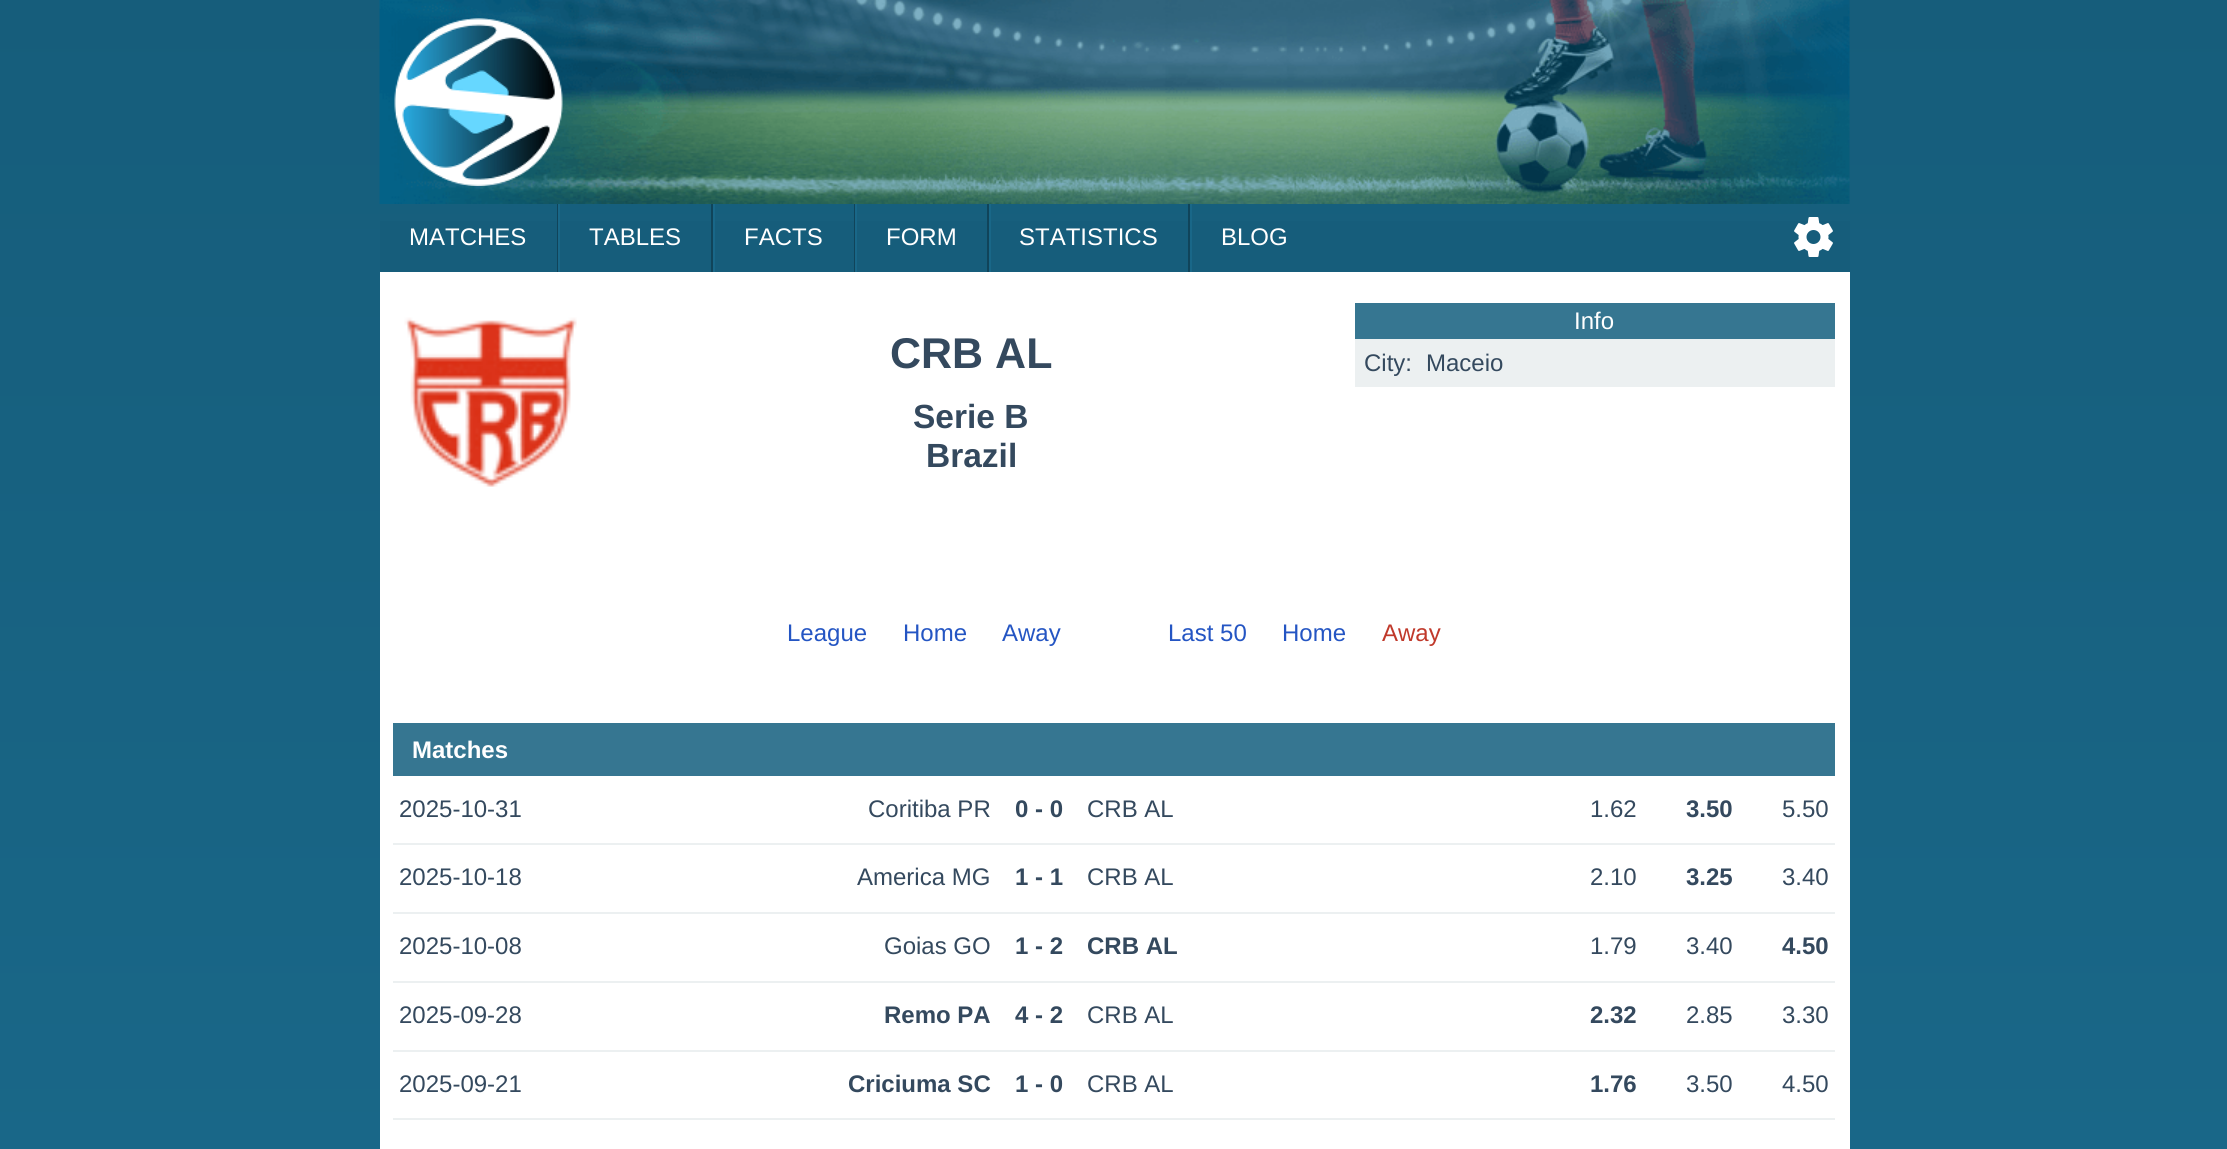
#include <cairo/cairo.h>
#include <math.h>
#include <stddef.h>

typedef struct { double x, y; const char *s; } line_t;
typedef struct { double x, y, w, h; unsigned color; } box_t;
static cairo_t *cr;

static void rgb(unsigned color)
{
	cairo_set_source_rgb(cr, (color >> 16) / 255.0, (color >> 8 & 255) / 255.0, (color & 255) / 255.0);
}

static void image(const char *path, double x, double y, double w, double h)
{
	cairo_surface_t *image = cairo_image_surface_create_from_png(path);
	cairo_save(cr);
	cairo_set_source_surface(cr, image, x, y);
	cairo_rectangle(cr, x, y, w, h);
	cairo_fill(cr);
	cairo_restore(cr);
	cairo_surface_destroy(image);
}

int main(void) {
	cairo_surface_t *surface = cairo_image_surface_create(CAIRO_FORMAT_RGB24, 2227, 1149);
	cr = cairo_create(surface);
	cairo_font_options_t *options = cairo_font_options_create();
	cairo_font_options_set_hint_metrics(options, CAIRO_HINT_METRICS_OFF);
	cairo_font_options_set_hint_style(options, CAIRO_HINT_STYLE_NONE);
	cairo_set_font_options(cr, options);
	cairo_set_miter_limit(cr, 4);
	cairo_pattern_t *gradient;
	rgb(0xffffff);
	cairo_paint(cr);
	gradient = cairo_pattern_create_linear(1114, 0, 1114, 1149);
	cairo_pattern_add_color_stop_rgba(gradient, 0, 0.086, 0.365, 0.482, 1);
	cairo_pattern_add_color_stop_rgba(gradient, 1, 0.098, 0.404, 0.533, 1);
	cairo_set_source(cr, gradient);
	cairo_pattern_destroy(gradient);
	cairo_rectangle(cr, 0, 0, 2227, 1149);
	cairo_fill(cr);
	image("img/1.png", 379, 0, 1471, 204);
	{
		static const box_t items[] = {
			{380, 221, 1470, 51, 0x165d7b},
			{557, 204, 1, 68, 0x10445a},
			{711, 204, 2, 68, 0x10445a},
			{558, 204, 2, 68, 0x196788},
			{854, 204, 1, 68, 0x10445a},
			{713, 204, 2, 68, 0x196788},
			{987, 204, 2, 68, 0x10445a},
			{855, 204, 2, 68, 0x196788},
			{1188, 204, 2, 68, 0x10445a},
			{989, 204, 2, 68, 0x196788},
			{1190, 204, 2, 68, 0x196788},
		};
		for (size_t i = 0; i < sizeof items / sizeof *items; i++) {
			rgb(items[i].color);
			cairo_rectangle(cr, items[i].x, items[i].y, items[i].w, items[i].h);
			cairo_fill(cr);
		}
	}
	image("img/2.png", 1794, 217, 39, 40);
	rgb(0xffffff);
	cairo_rectangle(cr, 380, 272, 1470, 877);
	cairo_fill(cr);
	image("img/3.png", 404, 317, 173, 170);
	{
		static const box_t items[] = {
			{1355, 339, 480, 48, 0xecf0f1},
			{1355, 303, 480, 36, 0x367691},
			{393, 723, 1442, 53, 0x367691},
			{393, 843, 1442, 2, 0xecf0f1},
			{393, 912, 1442, 2, 0xecf0f1},
			{393, 981, 1442, 2, 0xecf0f1},
			{393, 1050, 1442, 2, 0xecf0f1},
			{393, 1118, 1442, 2, 0xecf0f1},
		};
		for (size_t i = 0; i < sizeof items / sizeof *items; i++) {
			rgb(items[i].color);
			cairo_rectangle(cr, items[i].x, items[i].y, items[i].w, items[i].h);
			cairo_fill(cr);
		}
	}
	cairo_select_font_face(cr, "Liberation Sans", CAIRO_FONT_SLANT_NORMAL, CAIRO_FONT_WEIGHT_NORMAL);
	cairo_set_font_size(cr, 24);
	rgb(0xffffff);
	{
		static const line_t items[] = {
			{409, 245, "MATCHES"},
			{589, 245, "TABLES"},
			{744, 245, "FACTS"},
			{886, 245, "FORM"},
			{1019, 245, "STATISTICS"},
			{1221, 245, "BLOG"},
		};
		for (size_t i = 0; i < sizeof items / sizeof *items; i++) {
			cairo_move_to(cr, items[i].x, items[i].y);
			cairo_show_text(cr, items[i].s);
		}
	}
	cairo_select_font_face(cr, "Liberation Sans", CAIRO_FONT_SLANT_NORMAL, CAIRO_FONT_WEIGHT_BOLD);
	cairo_set_font_size(cr, 43);
	rgb(0x34495e);
	cairo_move_to(cr, 890, 368);
	cairo_show_text(cr, "CRB AL");
	cairo_select_font_face(cr, "Liberation Sans", CAIRO_FONT_SLANT_NORMAL, CAIRO_FONT_WEIGHT_NORMAL);
	cairo_set_font_size(cr, 24);
	rgb(0xffffff);
	cairo_move_to(cr, 1574, 329);
	cairo_show_text(cr, "Info");
	rgb(0x34495e);
	cairo_move_to(cr, 1364, 371);
	cairo_show_text(cr, "City:");
	cairo_move_to(cr, 1426, 371);
	cairo_show_text(cr, "Maceio");
	cairo_select_font_face(cr, "Liberation Sans", CAIRO_FONT_SLANT_NORMAL, CAIRO_FONT_WEIGHT_BOLD);
	cairo_set_font_size(cr, 33.5);
	cairo_move_to(cr, 913, 428);
	cairo_show_text(cr, "Serie B");
	cairo_move_to(cr, 926, 467);
	cairo_show_text(cr, "Brazil");
	cairo_select_font_face(cr, "Liberation Sans", CAIRO_FONT_SLANT_NORMAL, CAIRO_FONT_WEIGHT_NORMAL);
	cairo_set_font_size(cr, 24);
	rgb(0x2455c3);
	{
		static const line_t items[] = {
			{787, 641, "League"},
			{903, 641, "Home"},
			{1002, 641, "Away"},
			{1168, 641, "Last 50"},
			{1282, 641, "Home"},
		};
		for (size_t i = 0; i < sizeof items / sizeof *items; i++) {
			cairo_move_to(cr, items[i].x, items[i].y);
			cairo_show_text(cr, items[i].s);
		}
	}
	rgb(0xc0392b);
	cairo_move_to(cr, 1382, 641);
	cairo_show_text(cr, "Away");
	cairo_select_font_face(cr, "Liberation Sans", CAIRO_FONT_SLANT_NORMAL, CAIRO_FONT_WEIGHT_BOLD);
	rgb(0xffffff);
	cairo_move_to(cr, 412, 758);
	cairo_show_text(cr, "Matches");
	cairo_select_font_face(cr, "Liberation Sans", CAIRO_FONT_SLANT_NORMAL, CAIRO_FONT_WEIGHT_NORMAL);
	rgb(0x34495e);
	cairo_move_to(cr, 399, 817);
	cairo_show_text(cr, "2025-10-31");
	cairo_move_to(cr, 868, 817);
	cairo_show_text(cr, "Coritiba PR");
	cairo_select_font_face(cr, "Liberation Sans", CAIRO_FONT_SLANT_NORMAL, CAIRO_FONT_WEIGHT_BOLD);
	cairo_move_to(cr, 1015, 817);
	cairo_show_text(cr, "0 - 0");
	cairo_select_font_face(cr, "Liberation Sans", CAIRO_FONT_SLANT_NORMAL, CAIRO_FONT_WEIGHT_NORMAL);
	cairo_move_to(cr, 1087, 817);
	cairo_show_text(cr, "CRB AL");
	cairo_move_to(cr, 1590, 817);
	cairo_show_text(cr, "1.62");
	cairo_select_font_face(cr, "Liberation Sans", CAIRO_FONT_SLANT_NORMAL, CAIRO_FONT_WEIGHT_BOLD);
	cairo_move_to(cr, 1686, 817);
	cairo_show_text(cr, "3.50");
	cairo_select_font_face(cr, "Liberation Sans", CAIRO_FONT_SLANT_NORMAL, CAIRO_FONT_WEIGHT_NORMAL);
	{
		static const line_t items[] = {
			{1782, 817, "5.50"},
			{399, 885, "2025-10-18"},
			{857, 885, "America MG"},
		};
		for (size_t i = 0; i < sizeof items / sizeof *items; i++) {
			cairo_move_to(cr, items[i].x, items[i].y);
			cairo_show_text(cr, items[i].s);
		}
	}
	cairo_select_font_face(cr, "Liberation Sans", CAIRO_FONT_SLANT_NORMAL, CAIRO_FONT_WEIGHT_BOLD);
	cairo_move_to(cr, 1015, 885);
	cairo_show_text(cr, "1 - 1");
	cairo_select_font_face(cr, "Liberation Sans", CAIRO_FONT_SLANT_NORMAL, CAIRO_FONT_WEIGHT_NORMAL);
	cairo_move_to(cr, 1087, 885);
	cairo_show_text(cr, "CRB AL");
	cairo_move_to(cr, 1590, 885);
	cairo_show_text(cr, "2.10");
	cairo_select_font_face(cr, "Liberation Sans", CAIRO_FONT_SLANT_NORMAL, CAIRO_FONT_WEIGHT_BOLD);
	cairo_move_to(cr, 1686, 885);
	cairo_show_text(cr, "3.25");
	cairo_select_font_face(cr, "Liberation Sans", CAIRO_FONT_SLANT_NORMAL, CAIRO_FONT_WEIGHT_NORMAL);
	{
		static const line_t items[] = {
			{1782, 885, "3.40"},
			{399, 954, "2025-10-08"},
			{884, 954, "Goias GO"},
		};
		for (size_t i = 0; i < sizeof items / sizeof *items; i++) {
			cairo_move_to(cr, items[i].x, items[i].y);
			cairo_show_text(cr, items[i].s);
		}
	}
	cairo_select_font_face(cr, "Liberation Sans", CAIRO_FONT_SLANT_NORMAL, CAIRO_FONT_WEIGHT_BOLD);
	cairo_move_to(cr, 1015, 954);
	cairo_show_text(cr, "1 - 2");
	cairo_save(cr);
	cairo_rectangle(cr, 1088, 914, 453, 67);
	cairo_clip(cr);
	cairo_move_to(cr, 1087, 954);
	cairo_show_text(cr, "CRB AL");
	cairo_restore(cr);
	cairo_select_font_face(cr, "Liberation Sans", CAIRO_FONT_SLANT_NORMAL, CAIRO_FONT_WEIGHT_NORMAL);
	cairo_move_to(cr, 1590, 954);
	cairo_show_text(cr, "1.79");
	cairo_move_to(cr, 1686, 954);
	cairo_show_text(cr, "3.40");
	cairo_select_font_face(cr, "Liberation Sans", CAIRO_FONT_SLANT_NORMAL, CAIRO_FONT_WEIGHT_BOLD);
	cairo_move_to(cr, 1782, 954);
	cairo_show_text(cr, "4.50");
	cairo_select_font_face(cr, "Liberation Sans", CAIRO_FONT_SLANT_NORMAL, CAIRO_FONT_WEIGHT_NORMAL);
	cairo_move_to(cr, 399, 1023);
	cairo_show_text(cr, "2025-09-28");
	cairo_select_font_face(cr, "Liberation Sans", CAIRO_FONT_SLANT_NORMAL, CAIRO_FONT_WEIGHT_BOLD);
	cairo_move_to(cr, 884, 1023);
	cairo_show_text(cr, "Remo PA");
	cairo_move_to(cr, 1015, 1023);
	cairo_show_text(cr, "4 - 2");
	cairo_select_font_face(cr, "Liberation Sans", CAIRO_FONT_SLANT_NORMAL, CAIRO_FONT_WEIGHT_NORMAL);
	cairo_move_to(cr, 1087, 1023);
	cairo_show_text(cr, "CRB AL");
	cairo_select_font_face(cr, "Liberation Sans", CAIRO_FONT_SLANT_NORMAL, CAIRO_FONT_WEIGHT_BOLD);
	cairo_move_to(cr, 1590, 1023);
	cairo_show_text(cr, "2.32");
	cairo_select_font_face(cr, "Liberation Sans", CAIRO_FONT_SLANT_NORMAL, CAIRO_FONT_WEIGHT_NORMAL);
	{
		static const line_t items[] = {
			{1686, 1023, "2.85"},
			{1782, 1023, "3.30"},
			{399, 1092, "2025-09-21"},
		};
		for (size_t i = 0; i < sizeof items / sizeof *items; i++) {
			cairo_move_to(cr, items[i].x, items[i].y);
			cairo_show_text(cr, items[i].s);
		}
	}
	cairo_select_font_face(cr, "Liberation Sans", CAIRO_FONT_SLANT_NORMAL, CAIRO_FONT_WEIGHT_BOLD);
	cairo_move_to(cr, 848, 1092);
	cairo_show_text(cr, "Criciuma SC");
	cairo_move_to(cr, 1015, 1092);
	cairo_show_text(cr, "1 - 0");
	cairo_select_font_face(cr, "Liberation Sans", CAIRO_FONT_SLANT_NORMAL, CAIRO_FONT_WEIGHT_NORMAL);
	cairo_move_to(cr, 1087, 1092);
	cairo_show_text(cr, "CRB AL");
	cairo_select_font_face(cr, "Liberation Sans", CAIRO_FONT_SLANT_NORMAL, CAIRO_FONT_WEIGHT_BOLD);
	cairo_move_to(cr, 1590, 1092);
	cairo_show_text(cr, "1.76");
	cairo_select_font_face(cr, "Liberation Sans", CAIRO_FONT_SLANT_NORMAL, CAIRO_FONT_WEIGHT_NORMAL);
	cairo_move_to(cr, 1686, 1092);
	cairo_show_text(cr, "3.50");
	cairo_move_to(cr, 1782, 1092);
	cairo_show_text(cr, "4.50");
	cairo_surface_write_to_png(surface, "page.png");
	cairo_font_options_destroy(options);
	cairo_destroy(cr);
	cairo_surface_destroy(surface);
	return 0;
}
